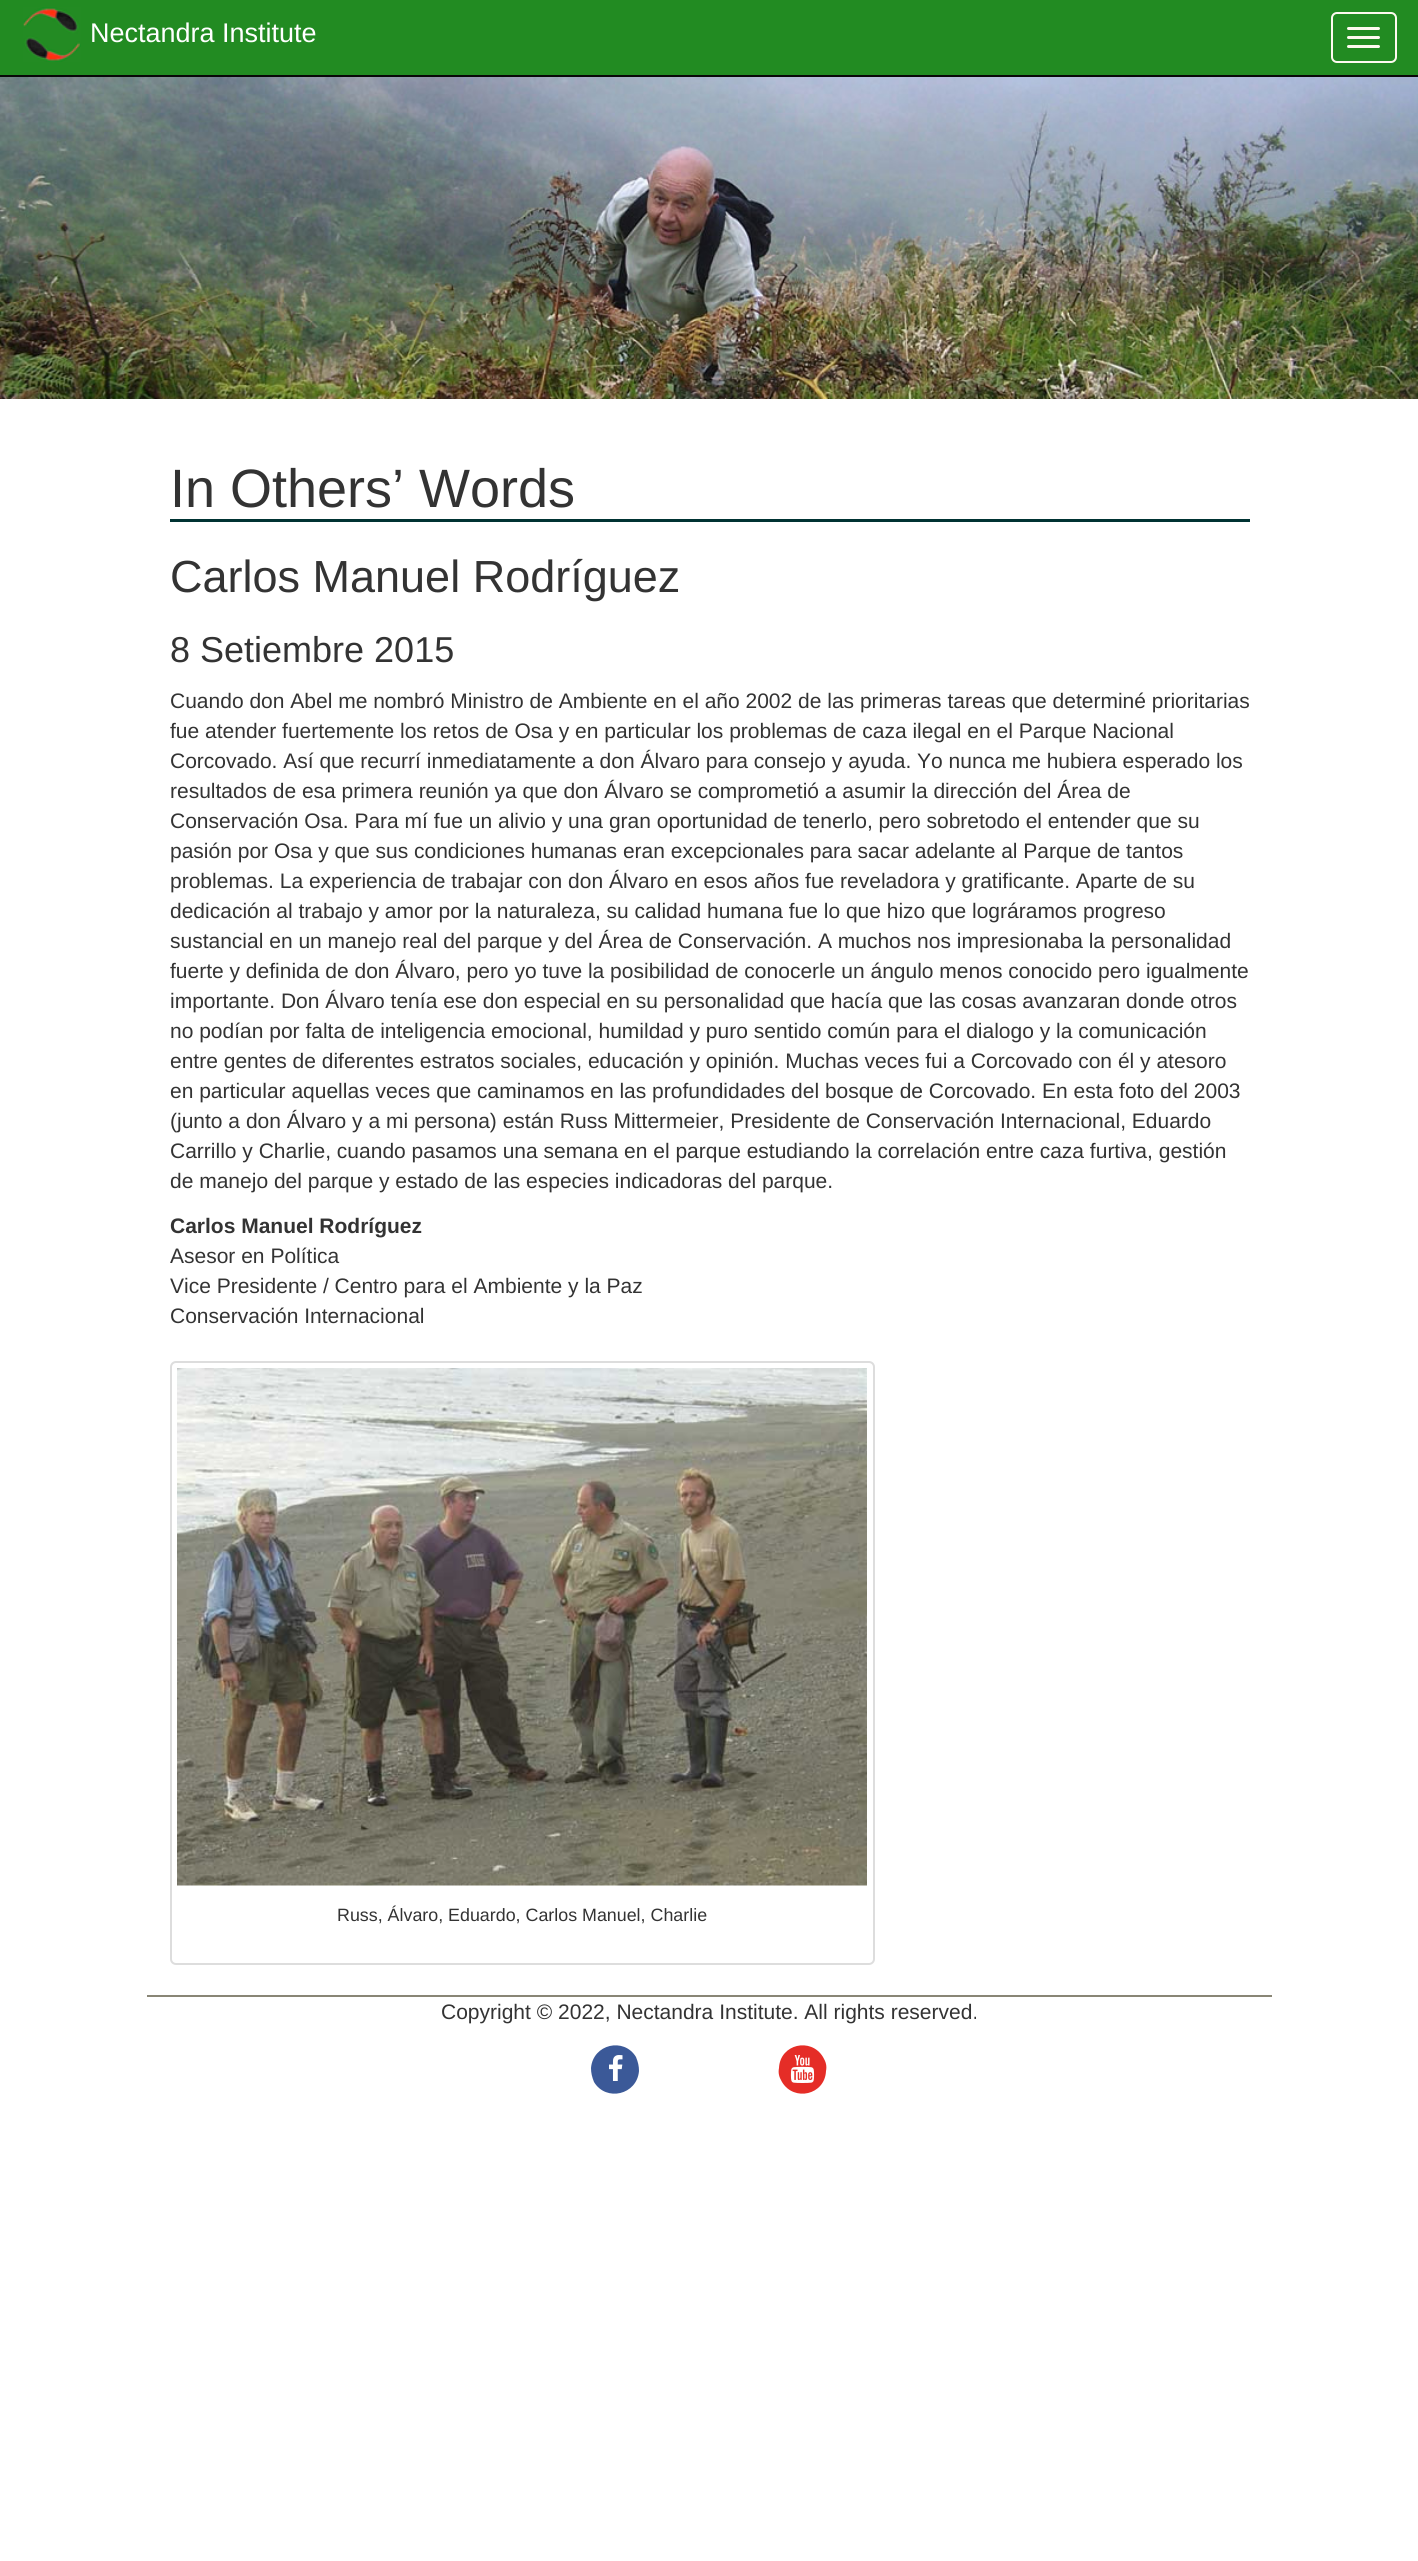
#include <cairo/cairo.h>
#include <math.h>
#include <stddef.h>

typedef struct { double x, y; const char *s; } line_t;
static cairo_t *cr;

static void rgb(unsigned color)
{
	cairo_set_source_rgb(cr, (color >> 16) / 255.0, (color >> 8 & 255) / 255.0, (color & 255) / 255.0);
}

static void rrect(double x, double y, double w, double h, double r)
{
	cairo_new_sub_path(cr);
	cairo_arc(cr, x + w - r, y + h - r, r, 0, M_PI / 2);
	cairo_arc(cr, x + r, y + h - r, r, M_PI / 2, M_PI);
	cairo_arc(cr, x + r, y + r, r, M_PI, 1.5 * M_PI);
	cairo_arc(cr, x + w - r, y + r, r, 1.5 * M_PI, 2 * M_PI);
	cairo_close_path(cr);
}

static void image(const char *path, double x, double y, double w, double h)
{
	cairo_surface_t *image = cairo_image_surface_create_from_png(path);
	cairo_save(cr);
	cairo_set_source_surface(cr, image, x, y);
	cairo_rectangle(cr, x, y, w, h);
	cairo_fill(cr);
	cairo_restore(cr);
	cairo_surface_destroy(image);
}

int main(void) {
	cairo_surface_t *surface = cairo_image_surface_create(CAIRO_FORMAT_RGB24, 1418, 2561);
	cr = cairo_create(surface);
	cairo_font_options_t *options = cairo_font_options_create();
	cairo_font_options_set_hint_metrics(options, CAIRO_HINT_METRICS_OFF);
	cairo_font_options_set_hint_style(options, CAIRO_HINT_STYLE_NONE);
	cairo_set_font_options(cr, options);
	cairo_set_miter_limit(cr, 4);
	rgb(0xffffff);
	cairo_paint(cr);
	rgb(0x228b22);
	cairo_rectangle(cr, 0, 0, 1418, 75);
	cairo_fill(cr);
	rgb(0x080808);
	cairo_rectangle(cr, 0, 75, 1418, 2);
	cairo_fill(cr);
	image("img/1.png", 23, 7, 58, 55);
	rrect(1332, 13, 64, 49, 5);
	rgb(0xfffaf0);
	cairo_stroke(cr);
	rrect(1347, 27, 33, 3, 1.5);
	cairo_fill(cr);
	rrect(1347, 36, 33, 3, 1.5);
	cairo_fill(cr);
	rrect(1347, 45, 33, 3, 1.5);
	cairo_fill(cr);
	image("img/2.png", 0, 77, 1418, 322);
	rgb(0x003333);
	cairo_rectangle(cr, 170, 519, 1080, 3);
	cairo_fill(cr);
	rrect(171, 1362, 703, 602, 5);
	rgb(0xdddddd);
	cairo_stroke(cr);
	image("img/3.png", 177, 1368, 690, 518);
	rgb(0x898676);
	cairo_rectangle(cr, 147, 1995, 1125, 2);
	cairo_fill(cr);
	rgb(0x3b5998);
	cairo_new_path(cr);
	cairo_move_to(cr, 636, 2057);
	cairo_curve_to(cr, 638, 2062, 639, 2066, 639, 2071);
	cairo_curve_to(cr, 637, 2095, 606, 2102, 594, 2082);
	cairo_curve_to(cr, 592, 2077, 591, 2073, 591, 2068);
	cairo_curve_to(cr, 593, 2044, 624, 2037, 636, 2057);
	cairo_close_path(cr);
	cairo_fill(cr);
	image("img/4.png", 609, 2055, 14, 26);
	rgb(0xe52d27);
	cairo_new_path(cr);
	cairo_move_to(cr, 823, 2057);
	cairo_curve_to(cr, 826, 2062, 827, 2066, 826, 2071);
	cairo_curve_to(cr, 825, 2095, 794, 2102, 782, 2082);
	cairo_curve_to(cr, 779, 2077, 778, 2073, 779, 2068);
	cairo_curve_to(cr, 780, 2044, 811, 2037, 823, 2057);
	cairo_close_path(cr);
	cairo_fill(cr);
	image("img/5.png", 790, 2055, 25, 28);
	cairo_select_font_face(cr, "Liberation Sans", CAIRO_FONT_SLANT_NORMAL, CAIRO_FONT_WEIGHT_NORMAL);
	cairo_set_font_size(cr, 27);
	rgb(0xffffff);
	cairo_move_to(cr, 90, 42);
	cairo_show_text(cr, "Nectandra Institute");
	cairo_set_font_size(cr, 54);
	rgb(0x333333);
	cairo_move_to(cr, 170, 507);
	cairo_show_text(cr, "In Others’ Words");
	cairo_set_font_size(cr, 45);
	cairo_move_to(cr, 170, 592);
	cairo_show_text(cr, "Carlos Manuel Rodríguez");
	cairo_set_font_size(cr, 36);
	cairo_move_to(cr, 170, 662);
	cairo_show_text(cr, "8 Setiembre 2015");
	cairo_set_font_size(cr, 21);
	{
		static const line_t items[] = {
			{170, 708, "Cuando don Abel me nombró Ministro de Ambiente en el año 2002 de las primeras tareas que determiné prioritarias"},
			{170, 738, "fue atender fuertemente los retos de Osa y en particular los problemas de caza ilegal en el Parque Nacional"},
			{170, 768, "Corcovado. Así que recurrí inmediatamente a don Álvaro para consejo y ayuda. Yo nunca me hubiera esperado los"},
			{170, 798, "resultados de esa primera reunión ya que don Álvaro se comprometió a asumir la dirección del Área de"},
			{170, 828, "Conservación Osa. Para mí fue un alivio y una gran oportunidad de tenerlo, pero sobretodo el entender que su"},
			{170, 858, "pasión por Osa y que sus condiciones humanas eran excepcionales para sacar adelante al Parque de tantos"},
			{170, 888, "problemas. La experiencia de trabajar con don Álvaro en esos años fue reveladora y gratificante. Aparte de su"},
			{170, 918, "dedicación al trabajo y amor por la naturaleza, su calidad humana fue lo que hizo que lográramos progreso"},
			{170, 948, "sustancial en un manejo real del parque y del Área de Conservación. A muchos nos impresionaba la personalidad"},
			{170, 978, "fuerte y definida de don Álvaro, pero yo tuve la posibilidad de conocerle un ángulo menos conocido pero igualmente"},
			{170, 1008, "importante. Don Álvaro tenía ese don especial en su personalidad que hacía que las cosas avanzaran donde otros"},
			{170, 1038, "no podían por falta de inteligencia emocional, humildad y puro sentido común para el dialogo y la comunicación"},
			{170, 1068, "entre gentes de diferentes estratos sociales, educación y opinión. Muchas veces fui a Corcovado con él y atesoro"},
			{170, 1098, "en particular aquellas veces que caminamos en las profundidades del bosque de Corcovado. En esta foto del 2003"},
			{170, 1128, "(junto a don Álvaro y a mi persona) están Russ Mittermeier, Presidente de Conservación Internacional, Eduardo"},
			{170, 1158, "Carrillo y Charlie, cuando pasamos una semana en el parque estudiando la correlación entre caza furtiva, gestión"},
			{170, 1188, "de manejo del parque y estado de las especies indicadoras del parque."},
		};
		for (size_t i = 0; i < sizeof items / sizeof *items; i++) {
			cairo_move_to(cr, items[i].x, items[i].y);
			cairo_show_text(cr, items[i].s);
		}
	}
	cairo_select_font_face(cr, "Liberation Sans", CAIRO_FONT_SLANT_NORMAL, CAIRO_FONT_WEIGHT_BOLD);
	cairo_move_to(cr, 170, 1233);
	cairo_show_text(cr, "Carlos Manuel Rodríguez");
	cairo_select_font_face(cr, "Liberation Sans", CAIRO_FONT_SLANT_NORMAL, CAIRO_FONT_WEIGHT_NORMAL);
	{
		static const line_t items[] = {
			{170, 1263, "Asesor en Política"},
			{170, 1293, "Vice Presidente / Centro para el Ambiente y la Paz"},
			{170, 1323, "Conservación Internacional"},
		};
		for (size_t i = 0; i < sizeof items / sizeof *items; i++) {
			cairo_move_to(cr, items[i].x, items[i].y);
			cairo_show_text(cr, items[i].s);
		}
	}
	cairo_set_font_size(cr, 17.85);
	cairo_move_to(cr, 337, 1921);
	cairo_show_text(cr, "Russ, Álvaro, Eduardo, Carlos Manuel, Charlie");
	cairo_set_font_size(cr, 21);
	cairo_move_to(cr, 441, 2019);
	cairo_show_text(cr, "Copyright © 2022, Nectandra Institute. All rights reserved.");
	cairo_surface_write_to_png(surface, "page.png");
	cairo_font_options_destroy(options);
	cairo_destroy(cr);
	cairo_surface_destroy(surface);
	return 0;
}
